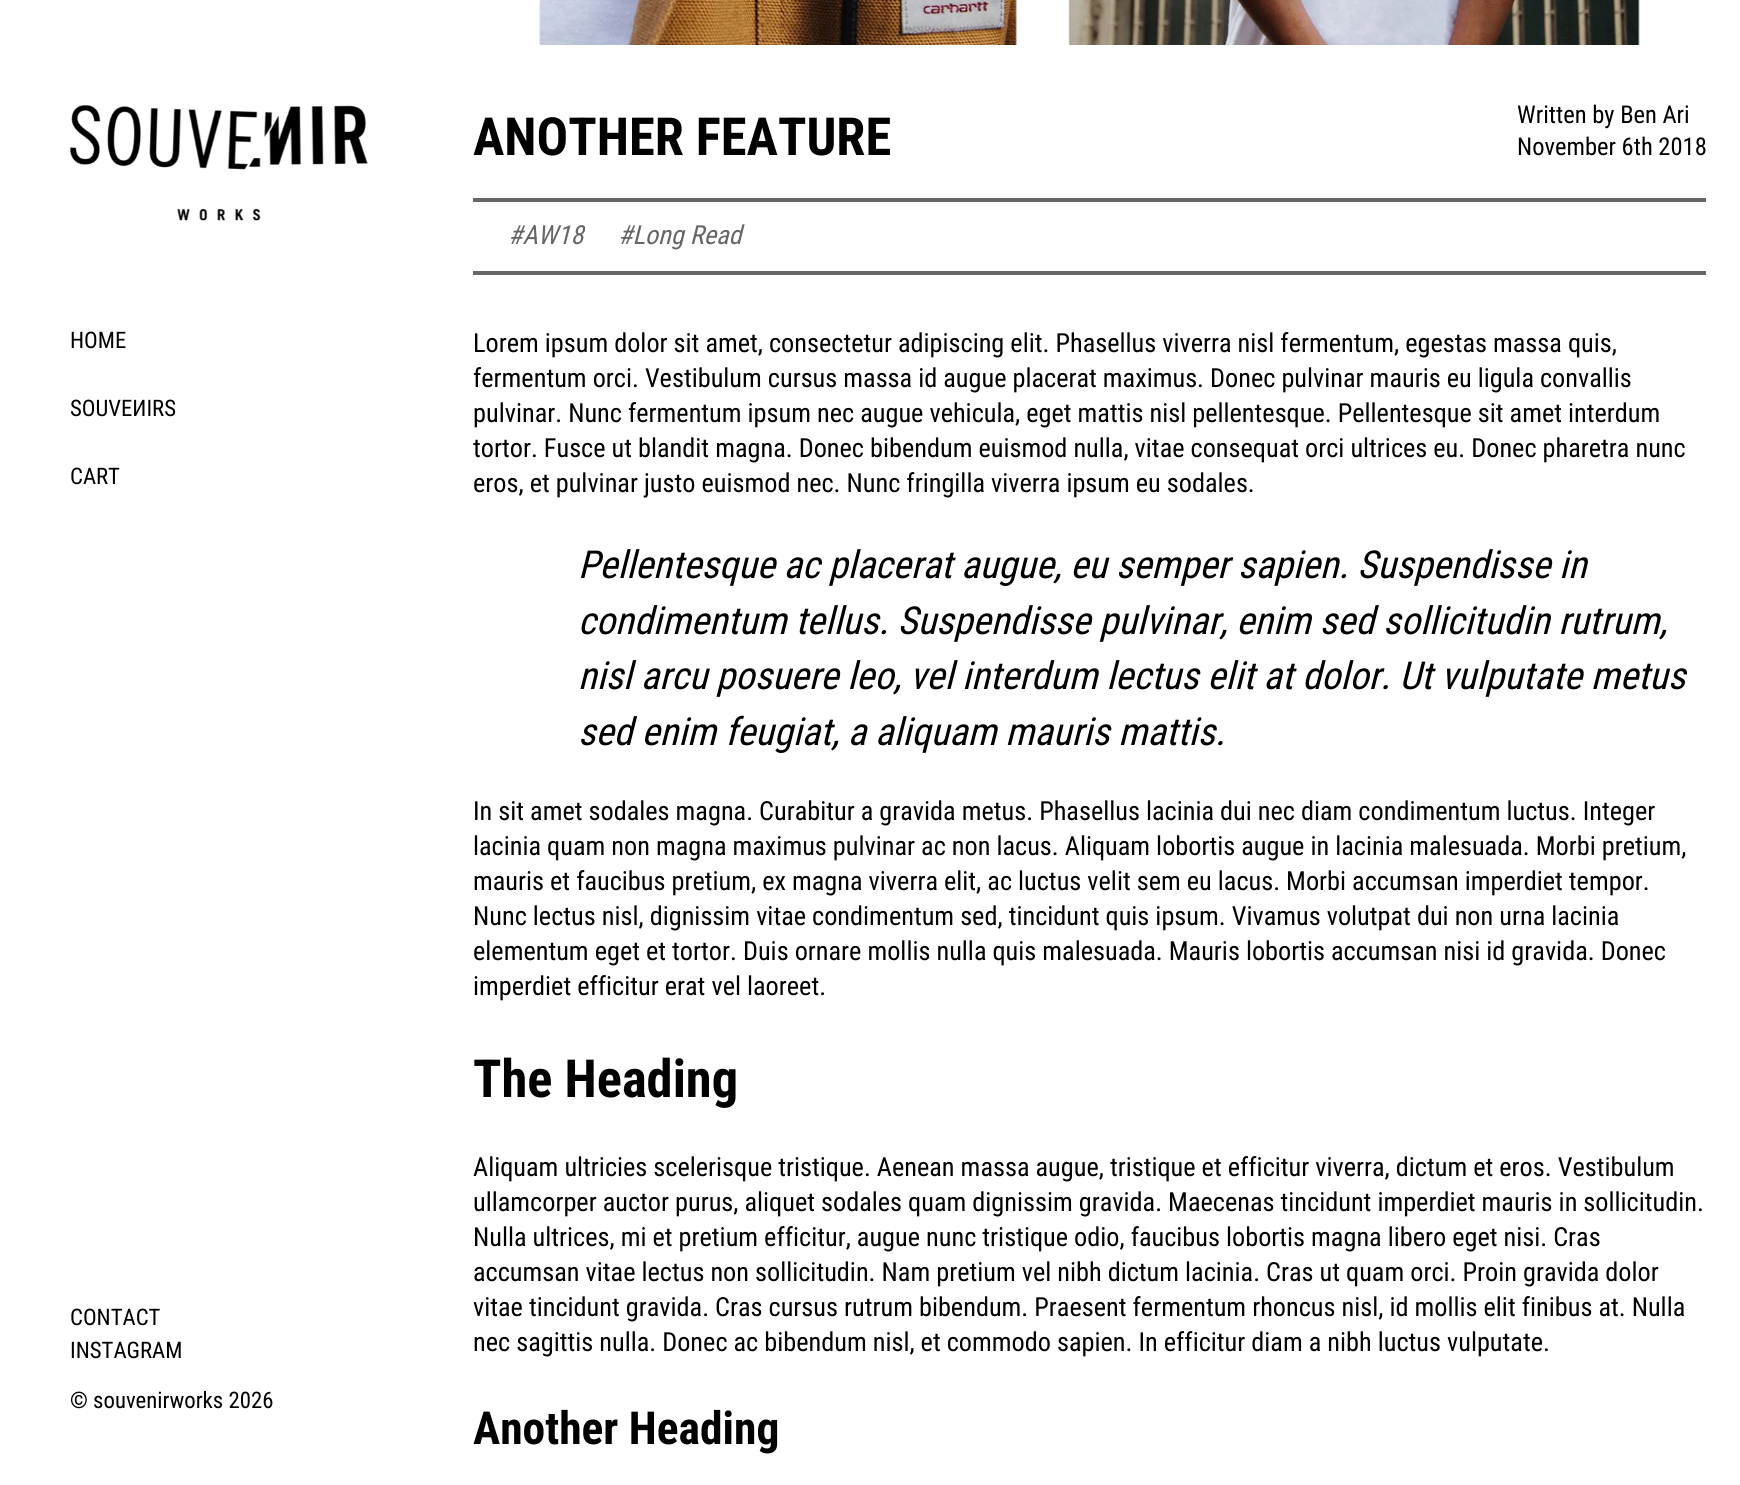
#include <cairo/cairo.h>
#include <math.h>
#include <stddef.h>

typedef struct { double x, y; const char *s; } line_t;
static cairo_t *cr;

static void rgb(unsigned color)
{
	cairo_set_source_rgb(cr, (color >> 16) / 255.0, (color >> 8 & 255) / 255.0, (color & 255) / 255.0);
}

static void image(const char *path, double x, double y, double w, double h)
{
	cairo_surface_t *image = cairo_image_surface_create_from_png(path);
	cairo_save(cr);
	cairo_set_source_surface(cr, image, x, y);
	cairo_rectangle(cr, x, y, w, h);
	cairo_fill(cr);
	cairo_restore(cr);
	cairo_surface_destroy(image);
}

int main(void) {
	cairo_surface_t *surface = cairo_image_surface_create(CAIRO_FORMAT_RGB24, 1740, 1485);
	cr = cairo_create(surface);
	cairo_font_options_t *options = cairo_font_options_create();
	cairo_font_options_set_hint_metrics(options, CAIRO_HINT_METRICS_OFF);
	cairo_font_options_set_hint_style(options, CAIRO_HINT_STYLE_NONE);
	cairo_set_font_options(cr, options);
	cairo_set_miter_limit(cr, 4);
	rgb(0xffffff);
	cairo_paint(cr);
	image("img/1.png", 70, 105, 298, 116);
	image("img/2.png", 539, 0, 1101, 45);
	rgb(0x666666);
	cairo_rectangle(cr, 473, 198, 1233, 4);
	cairo_fill(cr);
	cairo_rectangle(cr, 473, 271, 1233, 4);
	cairo_fill(cr);
	cairo_select_font_face(cr, "Roboto Condensed", CAIRO_FONT_SLANT_NORMAL, CAIRO_FONT_WEIGHT_NORMAL);
	cairo_set_font_size(cr, 22.75);
	rgb(0x000000);
	{
		static const line_t items[] = {
			{70, 348, "HOME"},
			{70, 416, "SOUVEИIRS"},
			{70, 484, "CART"},
		};
		for (size_t i = 0; i < sizeof items / sizeof *items; i++) {
			cairo_move_to(cr, items[i].x, items[i].y);
			cairo_show_text(cr, items[i].s);
		}
	}
	cairo_select_font_face(cr, "Roboto Condensed", CAIRO_FONT_SLANT_NORMAL, CAIRO_FONT_WEIGHT_BOLD);
	cairo_set_font_size(cr, 52.5);
	cairo_move_to(cr, 473, 155);
	cairo_show_text(cr, "ANOTHER FEATURE");
	cairo_select_font_face(cr, "Roboto Condensed", CAIRO_FONT_SLANT_NORMAL, CAIRO_FONT_WEIGHT_NORMAL);
	cairo_set_font_size(cr, 24.5);
	cairo_move_to(cr, 1517, 123);
	cairo_show_text(cr, "Written by Ben Ari");
	cairo_move_to(cr, 1517, 155);
	cairo_show_text(cr, "November 6th 2018");
	cairo_select_font_face(cr, "Roboto Condensed", CAIRO_FONT_SLANT_ITALIC, CAIRO_FONT_WEIGHT_NORMAL);
	cairo_set_font_size(cr, 26.25);
	rgb(0x666666);
	cairo_move_to(cr, 508, 244);
	cairo_show_text(cr, "#AW18");
	cairo_move_to(cr, 618, 244);
	cairo_show_text(cr, "#Long Read");
	cairo_select_font_face(cr, "Roboto Condensed", CAIRO_FONT_SLANT_NORMAL, CAIRO_FONT_WEIGHT_NORMAL);
	rgb(0x000000);
	{
		static const line_t items[] = {
			{473, 352, "Lorem ipsum dolor sit amet, consectetur adipiscing elit. Phasellus viverra nisl fermentum, egestas massa quis,"},
			{473, 387, "fermentum orci. Vestibulum cursus massa id augue placerat maximus. Donec pulvinar mauris eu ligula convallis"},
			{473, 422, "pulvinar. Nunc fermentum ipsum nec augue vehicula, eget mattis nisl pellentesque. Pellentesque sit amet interdum"},
			{473, 457, "tortor. Fusce ut blandit magna. Donec bibendum euismod nulla, vitae consequat orci ultrices eu. Donec pharetra nunc"},
			{473, 492, "eros, et pulvinar justo euismod nec. Nunc fringilla viverra ipsum eu sodales."},
		};
		for (size_t i = 0; i < sizeof items / sizeof *items; i++) {
			cairo_move_to(cr, items[i].x, items[i].y);
			cairo_show_text(cr, items[i].s);
		}
	}
	cairo_select_font_face(cr, "Roboto Condensed", CAIRO_FONT_SLANT_ITALIC, CAIRO_FONT_WEIGHT_NORMAL);
	cairo_set_font_size(cr, 38.5);
	{
		static const line_t items[] = {
			{578, 578, "Pellentesque ac placerat augue, eu semper sapien. Suspendisse in"},
			{578, 634, "condimentum tellus. Suspendisse pulvinar, enim sed sollicitudin rutrum,"},
			{578, 689, "nisl arcu posuere leo, vel interdum lectus elit at dolor. Ut vulputate metus"},
			{578, 745, "sed enim feugiat, a aliquam mauris mattis."},
		};
		for (size_t i = 0; i < sizeof items / sizeof *items; i++) {
			cairo_move_to(cr, items[i].x, items[i].y);
			cairo_show_text(cr, items[i].s);
		}
	}
	cairo_select_font_face(cr, "Roboto Condensed", CAIRO_FONT_SLANT_NORMAL, CAIRO_FONT_WEIGHT_NORMAL);
	cairo_set_font_size(cr, 26.25);
	{
		static const line_t items[] = {
			{473, 820, "In sit amet sodales magna. Curabitur a gravida metus. Phasellus lacinia dui nec diam condimentum luctus. Integer"},
			{473, 855, "lacinia quam non magna maximus pulvinar ac non lacus. Aliquam lobortis augue in lacinia malesuada. Morbi pretium,"},
			{473, 890, "mauris et faucibus pretium, ex magna viverra elit, ac luctus velit sem eu lacus. Morbi accumsan imperdiet tempor."},
			{473, 925, "Nunc lectus nisl, dignissim vitae condimentum sed, tincidunt quis ipsum. Vivamus volutpat dui non urna lacinia"},
			{473, 960, "elementum eget et tortor. Duis ornare mollis nulla quis malesuada. Mauris lobortis accumsan nisi id gravida. Donec"},
			{473, 995, "imperdiet efficitur erat vel laoreet."},
		};
		for (size_t i = 0; i < sizeof items / sizeof *items; i++) {
			cairo_move_to(cr, items[i].x, items[i].y);
			cairo_show_text(cr, items[i].s);
		}
	}
	cairo_select_font_face(cr, "Roboto Condensed", CAIRO_FONT_SLANT_NORMAL, CAIRO_FONT_WEIGHT_BOLD);
	cairo_set_font_size(cr, 52.5);
	cairo_move_to(cr, 473, 1097);
	cairo_show_text(cr, "The Heading");
	cairo_select_font_face(cr, "Roboto Condensed", CAIRO_FONT_SLANT_NORMAL, CAIRO_FONT_WEIGHT_NORMAL);
	cairo_set_font_size(cr, 26.25);
	{
		static const line_t items[] = {
			{473, 1176, "Aliquam ultricies scelerisque tristique. Aenean massa augue, tristique et efficitur viverra, dictum et eros. Vestibulum"},
			{473, 1211, "ullamcorper auctor purus, aliquet sodales quam dignissim gravida. Maecenas tincidunt imperdiet mauris in sollicitudin."},
			{473, 1246, "Nulla ultrices, mi et pretium efficitur, augue nunc tristique odio, faucibus lobortis magna libero eget nisi. Cras"},
			{473, 1281, "accumsan vitae lectus non sollicitudin. Nam pretium vel nibh dictum lacinia. Cras ut quam orci. Proin gravida dolor"},
			{473, 1316, "vitae tincidunt gravida. Cras cursus rutrum bibendum. Praesent fermentum rhoncus nisl, id mollis elit finibus at. Nulla"},
			{473, 1351, "nec sagittis nulla. Donec ac bibendum nisl, et commodo sapien. In efficitur diam a nibh luctus vulputate."},
		};
		for (size_t i = 0; i < sizeof items / sizeof *items; i++) {
			cairo_move_to(cr, items[i].x, items[i].y);
			cairo_show_text(cr, items[i].s);
		}
	}
	cairo_select_font_face(cr, "Roboto Condensed", CAIRO_FONT_SLANT_NORMAL, CAIRO_FONT_WEIGHT_BOLD);
	cairo_set_font_size(cr, 45.5);
	cairo_move_to(cr, 473, 1444);
	cairo_show_text(cr, "Another Heading");
	cairo_select_font_face(cr, "Roboto Condensed", CAIRO_FONT_SLANT_NORMAL, CAIRO_FONT_WEIGHT_NORMAL);
	cairo_set_font_size(cr, 22.75);
	{
		static const line_t items[] = {
			{70, 1325, "CONTACT"},
			{70, 1358, "INSTAGRAM"},
			{70, 1408, "© souvenirworks 2026"},
		};
		for (size_t i = 0; i < sizeof items / sizeof *items; i++) {
			cairo_move_to(cr, items[i].x, items[i].y);
			cairo_show_text(cr, items[i].s);
		}
	}
	cairo_surface_write_to_png(surface, "page.png");
	cairo_font_options_destroy(options);
	cairo_destroy(cr);
	cairo_surface_destroy(surface);
	return 0;
}
